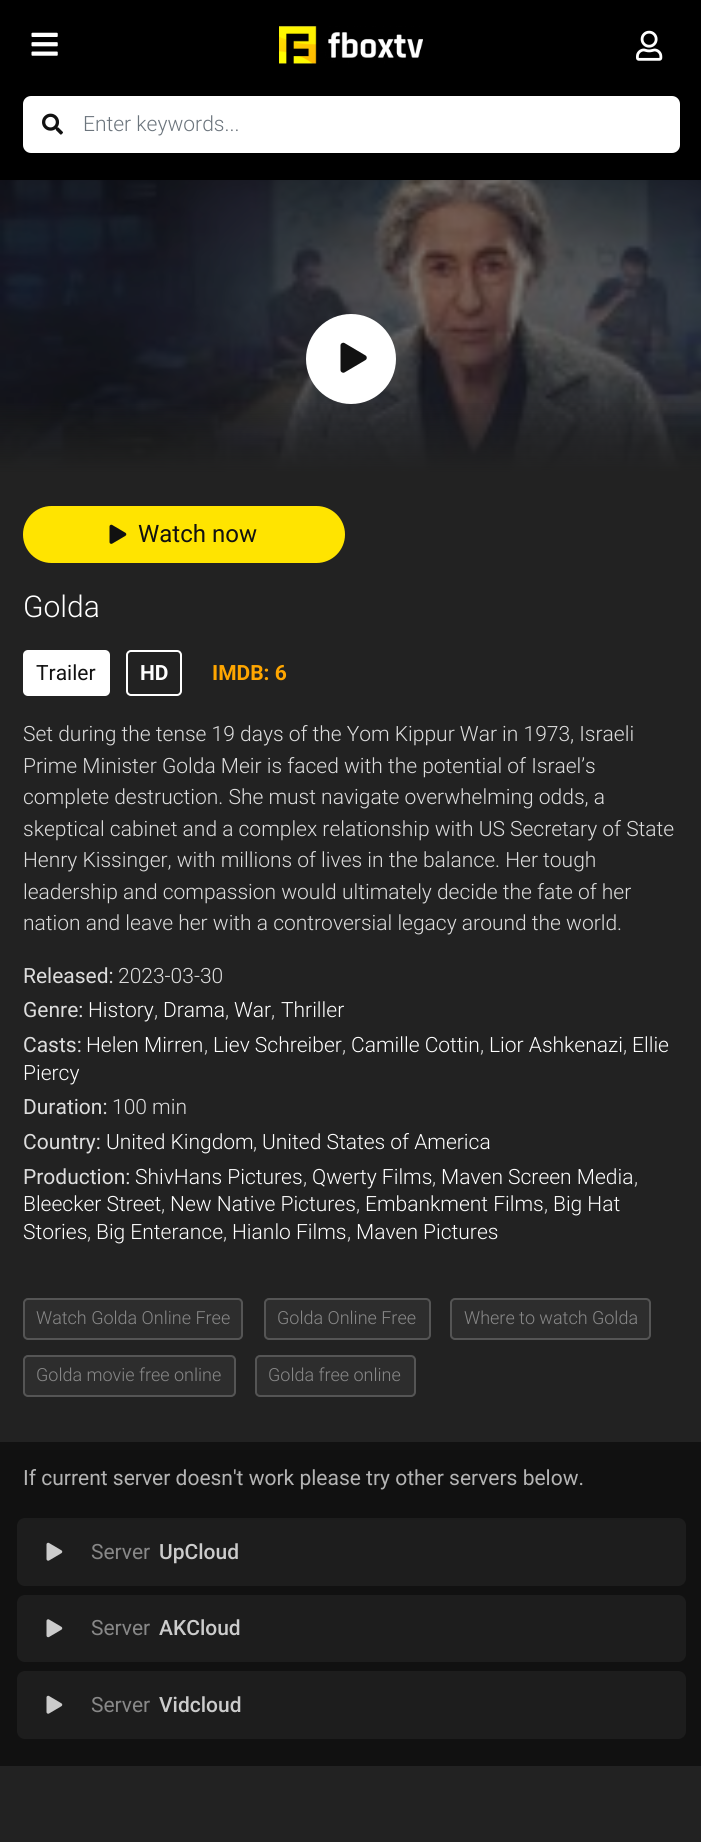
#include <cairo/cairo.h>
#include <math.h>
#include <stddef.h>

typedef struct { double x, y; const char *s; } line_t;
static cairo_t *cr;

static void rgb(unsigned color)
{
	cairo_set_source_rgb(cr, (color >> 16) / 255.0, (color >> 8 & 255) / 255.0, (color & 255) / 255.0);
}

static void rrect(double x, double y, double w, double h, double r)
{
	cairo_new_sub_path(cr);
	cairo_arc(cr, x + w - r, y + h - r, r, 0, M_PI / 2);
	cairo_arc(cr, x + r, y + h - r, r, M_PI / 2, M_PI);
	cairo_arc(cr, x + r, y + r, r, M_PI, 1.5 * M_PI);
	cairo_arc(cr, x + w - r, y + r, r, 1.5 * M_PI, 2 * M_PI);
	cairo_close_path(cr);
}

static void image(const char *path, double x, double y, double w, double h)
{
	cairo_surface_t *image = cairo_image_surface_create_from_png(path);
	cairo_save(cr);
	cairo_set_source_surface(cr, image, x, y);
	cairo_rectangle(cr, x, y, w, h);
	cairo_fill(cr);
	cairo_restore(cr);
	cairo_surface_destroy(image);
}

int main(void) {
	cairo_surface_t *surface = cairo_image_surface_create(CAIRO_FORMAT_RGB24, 701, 1842);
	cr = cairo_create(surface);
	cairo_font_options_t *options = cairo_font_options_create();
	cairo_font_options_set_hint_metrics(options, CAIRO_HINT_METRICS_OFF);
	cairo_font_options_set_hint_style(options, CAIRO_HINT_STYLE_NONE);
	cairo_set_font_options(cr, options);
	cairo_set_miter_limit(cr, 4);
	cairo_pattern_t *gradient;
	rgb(0x222222);
	cairo_paint(cr);
	rgb(0x1a1a1a);
	cairo_rectangle(cr, 0, 472, 701, 1);
	cairo_fill(cr);
	rgb(0x000000);
	cairo_rectangle(cr, 0, 0, 701, 180);
	cairo_fill(cr);
	image("img/1.png", 31, 32, 27, 24);
	image("img/2.png", 279, 26, 144, 38);
	image("img/3.png", 636, 30, 27, 31);
	rgb(0xffffff);
	rrect(23, 96, 657, 57, 8);
	cairo_fill(cr);
	image("img/4.png", 42, 113, 21, 22);
	image("img/5.png", 0, 180, 701, 293);
	gradient = cairo_pattern_create_linear(351, 398, 351, 473);
	cairo_pattern_add_color_stop_rgba(gradient, 0, 0.133, 0.133, 0.133, 0);
	cairo_pattern_add_color_stop_rgba(gradient, 1, 0.133, 0.133, 0.133, 1);
	cairo_set_source(cr, gradient);
	cairo_pattern_destroy(gradient);
	cairo_rectangle(cr, 0, 403, 701, 70);
	cairo_fill(cr);
	rgb(0xffffff);
	cairo_arc(cr, 351, 359, 45, 0, 2 * M_PI);
	cairo_fill(cr);
	image("img/6.png", 340, 342, 27, 31);
	rgb(0xffe400);
	rrect(24, 507, 320, 55, 27.5);
	cairo_fill_preserve(cr);
	cairo_stroke(cr);
	image("img/7.png", 109, 524, 18, 20);
	rgb(0xffffff);
	rrect(23, 650, 87, 46, 5);
	cairo_fill(cr);
	rrect(127, 651, 54, 44, 4);
	cairo_stroke(cr);
	rgb(0x2d2d2d);
	rrect(24, 1299, 218, 40, 4);
	cairo_fill_preserve(cr);
	rgb(0x555555);
	cairo_stroke(cr);
	rgb(0x2d2d2d);
	rrect(265, 1299, 165, 40, 4);
	cairo_fill_preserve(cr);
	rgb(0x555555);
	cairo_stroke(cr);
	rgb(0x2d2d2d);
	rrect(451, 1299, 199, 40, 4);
	cairo_fill_preserve(cr);
	rgb(0x555555);
	cairo_stroke(cr);
	rgb(0x2d2d2d);
	rrect(24, 1356, 211, 40, 4);
	cairo_fill_preserve(cr);
	rgb(0x555555);
	cairo_stroke(cr);
	rgb(0x2d2d2d);
	rrect(256, 1356, 159, 40, 4);
	cairo_fill_preserve(cr);
	rgb(0x555555);
	cairo_stroke(cr);
	rgb(0x111111);
	cairo_rectangle(cr, 0, 1442, 701, 324);
	cairo_fill(cr);
	rgb(0x1d1d1d);
	rrect(17, 1518, 669, 68, 8);
	cairo_fill(cr);
	image("img/8.png", 46, 1542, 17, 19);
	rrect(17, 1595, 669, 67, 8);
	cairo_fill(cr);
	image("img/9.png", 46, 1619, 17, 19);
	rrect(17, 1671, 669, 68, 8);
	cairo_fill(cr);
	image("img/8.png", 46, 1695, 17, 19);
	cairo_select_font_face(cr, "Roboto Light", CAIRO_FONT_SLANT_NORMAL, CAIRO_FONT_WEIGHT_NORMAL);
	cairo_set_font_size(cr, 21);
	rgb(0x6c757d);
	cairo_move_to(cr, 83, 131);
	cairo_show_text(cr, "Enter keywords...");
	cairo_select_font_face(cr, "Roboto", CAIRO_FONT_SLANT_NORMAL, CAIRO_FONT_WEIGHT_NORMAL);
	cairo_set_font_size(cr, 24);
	rgb(0x111111);
	cairo_move_to(cr, 138, 542);
	cairo_show_text(cr, "Watch now");
	cairo_select_font_face(cr, "Roboto Light", CAIRO_FONT_SLANT_NORMAL, CAIRO_FONT_WEIGHT_NORMAL);
	cairo_set_font_size(cr, 30);
	rgb(0xffffff);
	cairo_move_to(cr, 23, 617);
	cairo_show_text(cr, "Golda");
	cairo_select_font_face(cr, "Roboto", CAIRO_FONT_SLANT_NORMAL, CAIRO_FONT_WEIGHT_NORMAL);
	cairo_set_font_size(cr, 21);
	rgb(0x111111);
	cairo_move_to(cr, 36, 680);
	cairo_show_text(cr, "Trailer");
	cairo_select_font_face(cr, "Roboto", CAIRO_FONT_SLANT_NORMAL, CAIRO_FONT_WEIGHT_BOLD);
	rgb(0xffffff);
	cairo_move_to(cr, 140, 680);
	cairo_show_text(cr, "HD");
	rgb(0xffa600);
	cairo_move_to(cr, 212, 680);
	cairo_show_text(cr, "IMDB: 6");
	cairo_select_font_face(cr, "Roboto Light", CAIRO_FONT_SLANT_NORMAL, CAIRO_FONT_WEIGHT_NORMAL);
	rgb(0xdddddd);
	{
		static const line_t items[] = {
			{23, 741, "Set during the tense 19 days of the Yom Kippur War in 1973, Israeli"},
			{23, 773, "Prime Minister Golda Meir is faced with the potential of Israel’s"},
			{23, 804, "complete destruction. She must navigate overwhelming odds, a"},
			{23, 836, "skeptical cabinet and a complex relationship with US Secretary of State"},
			{23, 867, "Henry Kissinger, with millions of lives in the balance. Her tough"},
			{23, 899, "leadership and compassion would ultimately decide the fate of her"},
			{23, 930, "nation and leave her with a controversial legacy around the world."},
		};
		for (size_t i = 0; i < sizeof items / sizeof *items; i++) {
			cairo_move_to(cr, items[i].x, items[i].y);
			cairo_show_text(cr, items[i].s);
		}
	}
	cairo_select_font_face(cr, "Roboto", CAIRO_FONT_SLANT_NORMAL, CAIRO_FONT_WEIGHT_NORMAL);
	cairo_move_to(cr, 23, 983);
	cairo_show_text(cr, "Released:");
	cairo_select_font_face(cr, "Roboto Light", CAIRO_FONT_SLANT_NORMAL, CAIRO_FONT_WEIGHT_NORMAL);
	cairo_move_to(cr, 118, 983);
	cairo_show_text(cr, "2023-03-30");
	cairo_select_font_face(cr, "Roboto", CAIRO_FONT_SLANT_NORMAL, CAIRO_FONT_WEIGHT_NORMAL);
	cairo_move_to(cr, 23, 1017);
	cairo_show_text(cr, "Genre:");
	cairo_select_font_face(cr, "Roboto Light", CAIRO_FONT_SLANT_NORMAL, CAIRO_FONT_WEIGHT_NORMAL);
	rgb(0xffffff);
	cairo_move_to(cr, 88, 1017);
	cairo_show_text(cr, "History");
	rgb(0xdddddd);
	cairo_move_to(cr, 154, 1017);
	cairo_show_text(cr, ",");
	rgb(0xffffff);
	cairo_move_to(cr, 163, 1017);
	cairo_show_text(cr, "Drama");
	rgb(0xdddddd);
	cairo_move_to(cr, 225, 1017);
	cairo_show_text(cr, ",");
	rgb(0xffffff);
	cairo_move_to(cr, 234, 1017);
	cairo_show_text(cr, "War");
	rgb(0xdddddd);
	cairo_move_to(cr, 271, 1017);
	cairo_show_text(cr, ",");
	rgb(0xffffff);
	cairo_move_to(cr, 281, 1017);
	cairo_show_text(cr, "Thriller");
	cairo_select_font_face(cr, "Roboto", CAIRO_FONT_SLANT_NORMAL, CAIRO_FONT_WEIGHT_NORMAL);
	rgb(0xdddddd);
	cairo_move_to(cr, 23, 1052);
	cairo_show_text(cr, "Casts:");
	cairo_select_font_face(cr, "Roboto Light", CAIRO_FONT_SLANT_NORMAL, CAIRO_FONT_WEIGHT_NORMAL);
	rgb(0xffffff);
	cairo_move_to(cr, 86, 1052);
	cairo_show_text(cr, "Helen Mirren");
	rgb(0xdddddd);
	cairo_move_to(cr, 204, 1052);
	cairo_show_text(cr, ",");
	rgb(0xffffff);
	cairo_move_to(cr, 213, 1052);
	cairo_show_text(cr, "Liev Schreiber");
	rgb(0xdddddd);
	cairo_move_to(cr, 342, 1052);
	cairo_show_text(cr, ",");
	rgb(0xffffff);
	cairo_move_to(cr, 351, 1052);
	cairo_show_text(cr, "Camille Cottin");
	rgb(0xdddddd);
	cairo_move_to(cr, 480, 1052);
	cairo_show_text(cr, ",");
	rgb(0xffffff);
	cairo_move_to(cr, 489, 1052);
	cairo_show_text(cr, "Lior Ashkenazi");
	rgb(0xdddddd);
	cairo_move_to(cr, 623, 1052);
	cairo_show_text(cr, ",");
	rgb(0xffffff);
	cairo_move_to(cr, 632, 1052);
	cairo_show_text(cr, "Ellie");
	cairo_move_to(cr, 23, 1080);
	cairo_show_text(cr, "Piercy");
	cairo_select_font_face(cr, "Roboto", CAIRO_FONT_SLANT_NORMAL, CAIRO_FONT_WEIGHT_NORMAL);
	rgb(0xdddddd);
	cairo_move_to(cr, 23, 1114);
	cairo_show_text(cr, "Duration:");
	cairo_select_font_face(cr, "Roboto Light", CAIRO_FONT_SLANT_NORMAL, CAIRO_FONT_WEIGHT_NORMAL);
	cairo_move_to(cr, 112, 1114);
	cairo_show_text(cr, "100 min");
	cairo_select_font_face(cr, "Roboto", CAIRO_FONT_SLANT_NORMAL, CAIRO_FONT_WEIGHT_NORMAL);
	cairo_move_to(cr, 23, 1149);
	cairo_show_text(cr, "Country:");
	cairo_select_font_face(cr, "Roboto Light", CAIRO_FONT_SLANT_NORMAL, CAIRO_FONT_WEIGHT_NORMAL);
	rgb(0xffffff);
	cairo_move_to(cr, 106, 1149);
	cairo_show_text(cr, "United Kingdom");
	rgb(0xdddddd);
	cairo_move_to(cr, 253, 1149);
	cairo_show_text(cr, ",");
	rgb(0xffffff);
	cairo_move_to(cr, 262, 1149);
	cairo_show_text(cr, "United States of America");
	cairo_select_font_face(cr, "Roboto", CAIRO_FONT_SLANT_NORMAL, CAIRO_FONT_WEIGHT_NORMAL);
	rgb(0xdddddd);
	cairo_move_to(cr, 23, 1184);
	cairo_show_text(cr, "Production:");
	cairo_select_font_face(cr, "Roboto Light", CAIRO_FONT_SLANT_NORMAL, CAIRO_FONT_WEIGHT_NORMAL);
	rgb(0xffffff);
	cairo_move_to(cr, 135, 1184);
	cairo_show_text(cr, "ShivHans Pictures");
	rgb(0xdddddd);
	cairo_move_to(cr, 303, 1184);
	cairo_show_text(cr, ",");
	rgb(0xffffff);
	cairo_move_to(cr, 312, 1184);
	cairo_show_text(cr, "Qwerty Films");
	rgb(0xdddddd);
	cairo_move_to(cr, 432, 1184);
	cairo_show_text(cr, ",");
	rgb(0xffffff);
	cairo_move_to(cr, 441, 1184);
	cairo_show_text(cr, "Maven Screen Media");
	rgb(0xdddddd);
	cairo_move_to(cr, 634, 1184);
	cairo_show_text(cr, ",");
	rgb(0xffffff);
	cairo_move_to(cr, 23, 1211);
	cairo_show_text(cr, "Bleecker Street");
	rgb(0xdddddd);
	cairo_move_to(cr, 161, 1211);
	cairo_show_text(cr, ",");
	rgb(0xffffff);
	cairo_move_to(cr, 170, 1211);
	cairo_show_text(cr, "New Native Pictures");
	rgb(0xdddddd);
	cairo_move_to(cr, 356, 1211);
	cairo_show_text(cr, ",");
	rgb(0xffffff);
	cairo_move_to(cr, 365, 1211);
	cairo_show_text(cr, "Embankment Films");
	rgb(0xdddddd);
	cairo_move_to(cr, 544, 1211);
	cairo_show_text(cr, ",");
	rgb(0xffffff);
	cairo_move_to(cr, 553, 1211);
	cairo_show_text(cr, "Big Hat");
	cairo_move_to(cr, 23, 1239);
	cairo_show_text(cr, "Stories");
	rgb(0xdddddd);
	cairo_move_to(cr, 87, 1239);
	cairo_show_text(cr, ",");
	rgb(0xffffff);
	cairo_move_to(cr, 96, 1239);
	cairo_show_text(cr, "Big Enterance");
	rgb(0xdddddd);
	cairo_move_to(cr, 223, 1239);
	cairo_show_text(cr, ",");
	rgb(0xffffff);
	cairo_move_to(cr, 232, 1239);
	cairo_show_text(cr, "Hianlo Films");
	rgb(0xdddddd);
	cairo_move_to(cr, 347, 1239);
	cairo_show_text(cr, ",");
	rgb(0xffffff);
	cairo_move_to(cr, 356, 1239);
	cairo_show_text(cr, "Maven Pictures");
	cairo_set_font_size(cr, 18);
	rgb(0x888888);
	{
		static const line_t items[] = {
			{36, 1324, "Watch Golda Online Free"},
			{277, 1324, "Golda Online Free"},
			{464, 1324, "Where to watch Golda"},
			{36, 1381, "Golda movie free online"},
			{268, 1381, "Golda free online"},
		};
		for (size_t i = 0; i < sizeof items / sizeof *items; i++) {
			cairo_move_to(cr, items[i].x, items[i].y);
			cairo_show_text(cr, items[i].s);
		}
	}
	cairo_select_font_face(cr, "Roboto", CAIRO_FONT_SLANT_NORMAL, CAIRO_FONT_WEIGHT_NORMAL);
	cairo_set_font_size(cr, 21);
	rgb(0xb4b4b4);
	cairo_move_to(cr, 23, 1485);
	cairo_show_text(cr, "If current server doesn't work please try other servers below.");
	rgb(0x888888);
	cairo_move_to(cr, 91, 1559);
	cairo_show_text(cr, "Server");
	cairo_select_font_face(cr, "Roboto Medium", CAIRO_FONT_SLANT_NORMAL, CAIRO_FONT_WEIGHT_NORMAL);
	rgb(0xcccccc);
	cairo_move_to(cr, 159, 1559);
	cairo_show_text(cr, "UpCloud");
	cairo_select_font_face(cr, "Roboto", CAIRO_FONT_SLANT_NORMAL, CAIRO_FONT_WEIGHT_NORMAL);
	rgb(0x888888);
	cairo_move_to(cr, 91, 1635);
	cairo_show_text(cr, "Server");
	cairo_select_font_face(cr, "Roboto Medium", CAIRO_FONT_SLANT_NORMAL, CAIRO_FONT_WEIGHT_NORMAL);
	rgb(0xcccccc);
	cairo_move_to(cr, 159, 1635);
	cairo_show_text(cr, "AKCloud");
	cairo_select_font_face(cr, "Roboto", CAIRO_FONT_SLANT_NORMAL, CAIRO_FONT_WEIGHT_NORMAL);
	rgb(0x888888);
	cairo_move_to(cr, 91, 1712);
	cairo_show_text(cr, "Server");
	cairo_select_font_face(cr, "Roboto Medium", CAIRO_FONT_SLANT_NORMAL, CAIRO_FONT_WEIGHT_NORMAL);
	rgb(0xcccccc);
	cairo_move_to(cr, 159, 1712);
	cairo_show_text(cr, "Vidcloud");
	cairo_surface_write_to_png(surface, "page.png");
	cairo_font_options_destroy(options);
	cairo_destroy(cr);
	cairo_surface_destroy(surface);
	return 0;
}
